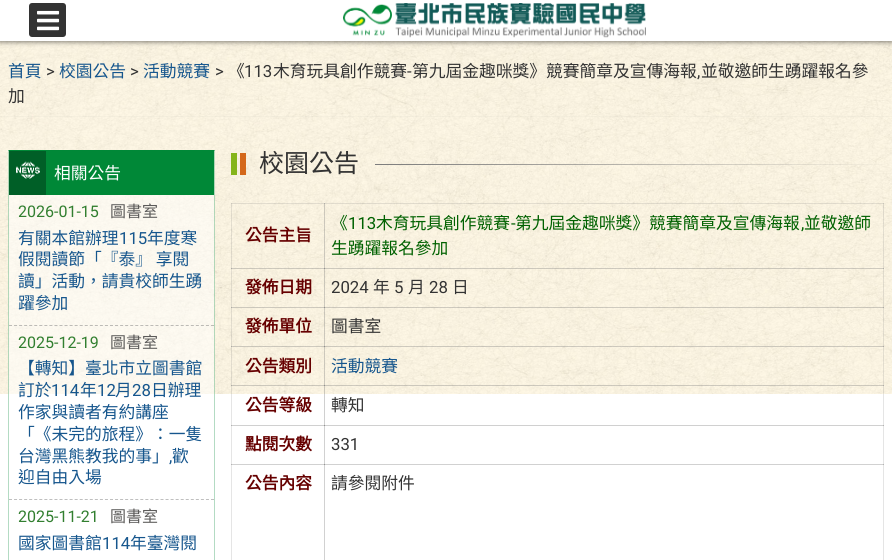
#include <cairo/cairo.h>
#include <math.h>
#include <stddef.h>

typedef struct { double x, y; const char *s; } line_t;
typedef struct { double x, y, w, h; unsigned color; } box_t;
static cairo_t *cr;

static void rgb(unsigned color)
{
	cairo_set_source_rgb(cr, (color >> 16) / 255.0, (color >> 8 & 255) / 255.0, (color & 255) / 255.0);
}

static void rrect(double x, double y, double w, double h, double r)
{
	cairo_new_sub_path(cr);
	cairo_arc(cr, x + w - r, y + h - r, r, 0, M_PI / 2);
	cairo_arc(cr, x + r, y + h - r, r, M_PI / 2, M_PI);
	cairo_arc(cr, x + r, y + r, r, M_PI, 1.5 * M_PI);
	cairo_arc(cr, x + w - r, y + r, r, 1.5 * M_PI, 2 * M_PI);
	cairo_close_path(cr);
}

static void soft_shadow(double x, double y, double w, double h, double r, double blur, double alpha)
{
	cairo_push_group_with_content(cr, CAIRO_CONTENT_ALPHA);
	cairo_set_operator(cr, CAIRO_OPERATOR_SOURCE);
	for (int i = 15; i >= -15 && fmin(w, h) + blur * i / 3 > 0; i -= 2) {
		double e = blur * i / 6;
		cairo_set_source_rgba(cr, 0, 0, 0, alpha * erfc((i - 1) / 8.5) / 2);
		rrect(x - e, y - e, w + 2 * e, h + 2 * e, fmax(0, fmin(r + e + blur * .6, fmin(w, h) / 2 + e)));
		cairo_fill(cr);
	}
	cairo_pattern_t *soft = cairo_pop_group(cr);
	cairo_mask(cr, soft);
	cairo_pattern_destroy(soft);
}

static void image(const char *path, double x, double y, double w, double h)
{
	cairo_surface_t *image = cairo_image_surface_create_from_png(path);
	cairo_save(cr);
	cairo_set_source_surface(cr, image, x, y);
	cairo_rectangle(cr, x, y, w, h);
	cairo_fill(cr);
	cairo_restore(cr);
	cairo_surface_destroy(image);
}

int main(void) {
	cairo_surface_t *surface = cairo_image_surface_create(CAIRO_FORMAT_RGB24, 892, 560);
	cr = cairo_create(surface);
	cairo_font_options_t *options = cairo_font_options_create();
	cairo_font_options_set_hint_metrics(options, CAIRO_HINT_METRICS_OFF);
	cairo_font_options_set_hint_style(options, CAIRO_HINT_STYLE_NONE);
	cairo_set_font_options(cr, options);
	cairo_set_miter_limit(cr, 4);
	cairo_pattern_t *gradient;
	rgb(0xffffff);
	cairo_paint(cr);
	{
		static const box_t items[] = {
			{231, 425, 1, 135, 0xe5e5e5},
			{231, 425, 94, 1, 0xe5e5e5},
			{231, 425, 1, 1, 0xd1d1d1},
			{324, 425, 1, 40, 0xd1d1d1},
			{883, 425, 1, 135, 0xe5e5e5},
			{231, 464, 94, 1, 0xd1d1d1},
			{231, 464, 1, 1, 0xb4b4b4},
			{324, 464, 1, 96, 0xd1d1d1},
		};
		for (size_t i = 0; i < sizeof items / sizeof *items; i++) {
			rgb(items[i].color);
			cairo_rectangle(cr, items[i].x, items[i].y, items[i].w, items[i].h);
			cairo_fill(cr);
		}
	}
	image("img/1.png", 0, 41, 892, 353);
	rgb(0x000000);
	soft_shadow(0, 1, 892, 41, 0, 2.5, 0.5);
	rgb(0xffffff);
	cairo_rectangle(cr, 0, 0, 892, 41);
	cairo_fill(cr);
	rgb(0x333333);
	rrect(29, 3, 37, 34, 3);
	cairo_fill(cr);
	image("img/2.png", 37, 10, 23, 21);
	image("img/3.png", 343, 3, 303, 35);
	cairo_set_source_rgba(cr, 0.498, 0.498, 0.498, 0.05);
	cairo_rectangle(cr, 0, 116, 892, 1);
	cairo_fill(cr);
	cairo_set_source_rgba(cr, 1, 1, 1, 0.5);
	cairo_rectangle(cr, 8, 150, 207, 244);
	cairo_fill(cr);
	rgb(0x008837);
	cairo_new_path(cr);
	cairo_move_to(cr, 8, 150);
	cairo_line_to(cr, 215, 150);
	cairo_line_to(cr, 214, 151);
	cairo_line_to(cr, 9, 151);
	cairo_close_path(cr);
	cairo_fill(cr);
	cairo_set_source_rgba(cr, 0, 0.533, 0.216, 0.3);
	cairo_new_path(cr);
	cairo_move_to(cr, 215, 150);
	cairo_line_to(cr, 215, 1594);
	cairo_line_to(cr, 214, 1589);
	cairo_line_to(cr, 214, 151);
	cairo_close_path(cr);
	cairo_fill(cr);
	cairo_new_path(cr);
	cairo_move_to(cr, 8, 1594);
	cairo_line_to(cr, 8, 150);
	cairo_line_to(cr, 9, 151);
	cairo_line_to(cr, 9, 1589);
	cairo_close_path(cr);
	cairo_fill(cr);
	rgb(0x008837);
	cairo_rectangle(cr, 46, 151, 168, 44);
	cairo_fill(cr);
	rgb(0x005f27);
	cairo_rectangle(cr, 9, 151, 37, 44);
	cairo_fill(cr);
	image("img/4.png", 16, 161, 24, 18);
	cairo_new_path(cr);
	cairo_move_to(cr, 9, 325.5);
	cairo_line_to(cr, 214, 325.5);
	cairo_set_source_rgba(cr, 0.498, 0.498, 0.498, 0.5);
	cairo_set_line_width(cr, 1);
	cairo_set_dash(cr, (double[]){3, 2.05}, 2, 0);
	cairo_stroke(cr);
	cairo_new_path(cr);
	cairo_move_to(cr, 9, 499.5);
	cairo_line_to(cr, 214, 499.5);
	rgb(0xbfbfbf);
	cairo_stroke(cr);
	image("img/5.png", 351, 139, 397, 140);
	image("img/6.png", 231, 153, 15, 22);
	gradient = cairo_pattern_create_linear(375, 165, 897, 164);
	cairo_pattern_add_color_stop_rgba(gradient, 0, 0.486, 0.486, 0.486, 1);
	cairo_pattern_add_color_stop_rgba(gradient, 1, 0.486, 0.486, 0.486, 0);
	cairo_set_source(cr, gradient);
	cairo_pattern_destroy(gradient);
	cairo_rectangle(cr, 375, 164, 509, 1);
	cairo_fill(cr);
	cairo_set_source_rgba(cr, 0.498, 0.498, 0.498, 0.2);
	cairo_rectangle(cr, 324, 203, 560, 1);
	cairo_fill(cr);
	cairo_rectangle(cr, 324, 268, 560, 1);
	cairo_fill(cr);
	cairo_rectangle(cr, 324, 307, 560, 1);
	cairo_fill(cr);
	cairo_rectangle(cr, 324, 346, 560, 1);
	cairo_fill(cr);
	cairo_rectangle(cr, 324, 385, 560, 1);
	cairo_fill(cr);
	rgb(0xe5e5e5);
	cairo_rectangle(cr, 324, 425, 560, 1);
	cairo_fill(cr);
	rgb(0xd1d1d1);
	cairo_rectangle(cr, 883, 425, 1, 1);
	cairo_fill(cr);
	cairo_set_source_rgba(cr, 0.498, 0.498, 0.498, 0.2);
	cairo_rectangle(cr, 883, 385, 1, 41);
	cairo_fill(cr);
	cairo_rectangle(cr, 883, 346, 1, 40);
	cairo_fill(cr);
	cairo_rectangle(cr, 883, 307, 1, 40);
	cairo_fill(cr);
	cairo_rectangle(cr, 883, 268, 1, 40);
	cairo_fill(cr);
	cairo_rectangle(cr, 883, 203, 1, 66);
	cairo_fill(cr);
	rgb(0xb4b4b4);
	cairo_rectangle(cr, 324, 425, 1, 1);
	cairo_fill(cr);
	cairo_set_source_rgba(cr, 0.498, 0.498, 0.498, 0.2);
	cairo_rectangle(cr, 324, 425, 560, 1);
	cairo_fill(cr);
	cairo_rectangle(cr, 324, 385, 1, 41);
	cairo_fill(cr);
	cairo_rectangle(cr, 231, 385, 94, 1);
	cairo_fill(cr);
	cairo_rectangle(cr, 324, 385, 1, 41);
	cairo_fill(cr);
	cairo_rectangle(cr, 324, 385, 560, 1);
	cairo_fill(cr);
	cairo_rectangle(cr, 324, 346, 1, 40);
	cairo_fill(cr);
	cairo_rectangle(cr, 231, 346, 94, 1);
	cairo_fill(cr);
	cairo_rectangle(cr, 324, 346, 1, 40);
	cairo_fill(cr);
	cairo_rectangle(cr, 324, 346, 560, 1);
	cairo_fill(cr);
	cairo_rectangle(cr, 324, 307, 1, 40);
	cairo_fill(cr);
	cairo_rectangle(cr, 231, 307, 94, 1);
	cairo_fill(cr);
	cairo_rectangle(cr, 324, 307, 1, 40);
	cairo_fill(cr);
	cairo_rectangle(cr, 324, 307, 560, 1);
	cairo_fill(cr);
	cairo_rectangle(cr, 324, 268, 1, 40);
	cairo_fill(cr);
	cairo_rectangle(cr, 231, 268, 94, 1);
	cairo_fill(cr);
	cairo_rectangle(cr, 324, 268, 1, 40);
	cairo_fill(cr);
	cairo_rectangle(cr, 324, 268, 560, 1);
	cairo_fill(cr);
	cairo_rectangle(cr, 324, 203, 1, 66);
	cairo_fill(cr);
	cairo_rectangle(cr, 231, 203, 94, 1);
	cairo_fill(cr);
	cairo_rectangle(cr, 324, 203, 1, 66);
	cairo_fill(cr);
	cairo_rectangle(cr, 231, 425, 94, 1);
	cairo_fill(cr);
	cairo_rectangle(cr, 231, 385, 1, 41);
	cairo_fill(cr);
	cairo_rectangle(cr, 231, 385, 94, 1);
	cairo_fill(cr);
	cairo_rectangle(cr, 231, 346, 1, 40);
	cairo_fill(cr);
	cairo_rectangle(cr, 231, 346, 94, 1);
	cairo_fill(cr);
	cairo_rectangle(cr, 231, 307, 1, 40);
	cairo_fill(cr);
	cairo_rectangle(cr, 231, 307, 94, 1);
	cairo_fill(cr);
	cairo_rectangle(cr, 231, 268, 1, 40);
	cairo_fill(cr);
	cairo_rectangle(cr, 231, 268, 94, 1);
	cairo_fill(cr);
	cairo_rectangle(cr, 231, 203, 1, 66);
	cairo_fill(cr);
	rgb(0xd1d1d1);
	cairo_rectangle(cr, 324, 464, 560, 1);
	cairo_fill(cr);
	rgb(0x959595);
	cairo_rectangle(cr, 324, 464, 1, 1);
	cairo_fill(cr);
	rgb(0xb4b4b4);
	cairo_rectangle(cr, 883, 464, 1, 1);
	cairo_fill(cr);
	cairo_select_font_face(cr, "Noto Sans CJK TC", CAIRO_FONT_SLANT_NORMAL, CAIRO_FONT_WEIGHT_NORMAL);
	cairo_set_font_size(cr, 16.75);
	rgb(0x16568d);
	cairo_move_to(cr, 8, 77);
	cairo_show_text(cr, "首頁");
	cairo_select_font_face(cr, "Roboto", CAIRO_FONT_SLANT_NORMAL, CAIRO_FONT_WEIGHT_NORMAL);
	rgb(0x333333);
	cairo_move_to(cr, 46, 77);
	cairo_show_text(cr, ">");
	cairo_select_font_face(cr, "Noto Sans CJK TC", CAIRO_FONT_SLANT_NORMAL, CAIRO_FONT_WEIGHT_NORMAL);
	rgb(0x16568d);
	cairo_move_to(cr, 59, 77);
	cairo_show_text(cr, "校園公告");
	cairo_select_font_face(cr, "Roboto", CAIRO_FONT_SLANT_NORMAL, CAIRO_FONT_WEIGHT_NORMAL);
	rgb(0x333333);
	cairo_move_to(cr, 130, 77);
	cairo_show_text(cr, ">");
	cairo_select_font_face(cr, "Noto Sans CJK TC", CAIRO_FONT_SLANT_NORMAL, CAIRO_FONT_WEIGHT_NORMAL);
	rgb(0x16568d);
	cairo_move_to(cr, 143, 77);
	cairo_show_text(cr, "活動競賽");
	cairo_select_font_face(cr, "Roboto", CAIRO_FONT_SLANT_NORMAL, CAIRO_FONT_WEIGHT_NORMAL);
	rgb(0x333333);
	cairo_move_to(cr, 215, 77);
	cairo_show_text(cr, ">");
	cairo_select_font_face(cr, "Noto Sans CJK TC", CAIRO_FONT_SLANT_NORMAL, CAIRO_FONT_WEIGHT_NORMAL);
	cairo_move_to(cr, 228, 77);
	cairo_show_text(cr, "《");
	cairo_select_font_face(cr, "Roboto", CAIRO_FONT_SLANT_NORMAL, CAIRO_FONT_WEIGHT_NORMAL);
	cairo_move_to(cr, 244, 77);
	cairo_show_text(cr, "113");
	cairo_select_font_face(cr, "Noto Sans CJK TC", CAIRO_FONT_SLANT_NORMAL, CAIRO_FONT_WEIGHT_NORMAL);
	cairo_move_to(cr, 273, 77);
	cairo_show_text(cr, "木育玩具創作競賽");
	cairo_select_font_face(cr, "Roboto", CAIRO_FONT_SLANT_NORMAL, CAIRO_FONT_WEIGHT_NORMAL);
	cairo_move_to(cr, 407, 77);
	cairo_show_text(cr, "-");
	cairo_select_font_face(cr, "Noto Sans CJK TC", CAIRO_FONT_SLANT_NORMAL, CAIRO_FONT_WEIGHT_NORMAL);
	cairo_move_to(cr, 412, 77);
	cairo_show_text(cr, "第九屆金趣咪獎》競賽簡章及宣傳海報");
	cairo_move_to(cr, 701, 77);
	cairo_show_text(cr, "並敬邀師生踴躍報名參");
	cairo_select_font_face(cr, "Roboto", CAIRO_FONT_SLANT_NORMAL, CAIRO_FONT_WEIGHT_NORMAL);
	cairo_move_to(cr, 697, 77);
	cairo_show_text(cr, ",");
	cairo_select_font_face(cr, "Noto Sans CJK TC", CAIRO_FONT_SLANT_NORMAL, CAIRO_FONT_WEIGHT_NORMAL);
	cairo_move_to(cr, 8, 102);
	cairo_show_text(cr, "加");
	rgb(0xffffff);
	cairo_move_to(cr, 54, 179);
	cairo_show_text(cr, "相關公告");
	cairo_select_font_face(cr, "Roboto", CAIRO_FONT_SLANT_NORMAL, CAIRO_FONT_WEIGHT_NORMAL);
	cairo_set_font_size(cr, 16);
	rgb(0x327f30);
	cairo_move_to(cr, 18, 217);
	cairo_show_text(cr, "2026-01-15");
	cairo_select_font_face(cr, "Noto Sans CJK TC", CAIRO_FONT_SLANT_NORMAL, CAIRO_FONT_WEIGHT_NORMAL);
	rgb(0x5b5a59);
	cairo_move_to(cr, 110, 217);
	cairo_show_text(cr, "圖書室");
	cairo_set_font_size(cr, 16.75);
	rgb(0x16568d);
	cairo_move_to(cr, 18, 244);
	cairo_show_text(cr, "有關本館辦理");
	cairo_select_font_face(cr, "Roboto", CAIRO_FONT_SLANT_NORMAL, CAIRO_FONT_WEIGHT_NORMAL);
	cairo_move_to(cr, 119, 244);
	cairo_show_text(cr, "115");
	cairo_select_font_face(cr, "Noto Sans CJK TC", CAIRO_FONT_SLANT_NORMAL, CAIRO_FONT_WEIGHT_NORMAL);
	{
		static const line_t items[] = {
			{147, 244, "年度寒"},
			{18, 265, "假閱讀節「『泰』 享閱"},
			{18, 287, "讀」活動，請貴校師生踴"},
			{18, 309, "躍參加"},
		};
		for (size_t i = 0; i < sizeof items / sizeof *items; i++) {
			cairo_move_to(cr, items[i].x, items[i].y);
			cairo_show_text(cr, items[i].s);
		}
	}
	cairo_select_font_face(cr, "Roboto", CAIRO_FONT_SLANT_NORMAL, CAIRO_FONT_WEIGHT_NORMAL);
	cairo_set_font_size(cr, 16);
	rgb(0x327f30);
	cairo_move_to(cr, 18, 348);
	cairo_show_text(cr, "2025-12-19");
	cairo_select_font_face(cr, "Noto Sans CJK TC", CAIRO_FONT_SLANT_NORMAL, CAIRO_FONT_WEIGHT_NORMAL);
	rgb(0x5b5a59);
	cairo_move_to(cr, 110, 348);
	cairo_show_text(cr, "圖書室");
	cairo_set_font_size(cr, 16.75);
	rgb(0x16568d);
	cairo_move_to(cr, 18, 374);
	cairo_show_text(cr, "【轉知】臺北市立圖書館");
	cairo_move_to(cr, 18, 396);
	cairo_show_text(cr, "訂於");
	cairo_select_font_face(cr, "Roboto", CAIRO_FONT_SLANT_NORMAL, CAIRO_FONT_WEIGHT_NORMAL);
	cairo_move_to(cr, 51, 396);
	cairo_show_text(cr, "114");
	cairo_select_font_face(cr, "Noto Sans CJK TC", CAIRO_FONT_SLANT_NORMAL, CAIRO_FONT_WEIGHT_NORMAL);
	cairo_move_to(cr, 80, 396);
	cairo_show_text(cr, "年");
	cairo_select_font_face(cr, "Roboto", CAIRO_FONT_SLANT_NORMAL, CAIRO_FONT_WEIGHT_NORMAL);
	cairo_move_to(cr, 97, 396);
	cairo_show_text(cr, "12");
	cairo_select_font_face(cr, "Noto Sans CJK TC", CAIRO_FONT_SLANT_NORMAL, CAIRO_FONT_WEIGHT_NORMAL);
	cairo_move_to(cr, 115, 396);
	cairo_show_text(cr, "月");
	cairo_select_font_face(cr, "Roboto", CAIRO_FONT_SLANT_NORMAL, CAIRO_FONT_WEIGHT_NORMAL);
	cairo_move_to(cr, 132, 396);
	cairo_show_text(cr, "28");
	cairo_select_font_face(cr, "Noto Sans CJK TC", CAIRO_FONT_SLANT_NORMAL, CAIRO_FONT_WEIGHT_NORMAL);
	{
		static const line_t items[] = {
			{151, 396, "日辦理"},
			{18, 418, "作家與讀者有約講座"},
			{18, 440, "「《未完的旅程》：一隻"},
			{18, 462, "台灣黑熊教我的事」"},
		};
		for (size_t i = 0; i < sizeof items / sizeof *items; i++) {
			cairo_move_to(cr, items[i].x, items[i].y);
			cairo_show_text(cr, items[i].s);
		}
	}
	cairo_select_font_face(cr, "Roboto", CAIRO_FONT_SLANT_NORMAL, CAIRO_FONT_WEIGHT_NORMAL);
	cairo_move_to(cr, 169, 462);
	cairo_show_text(cr, ",");
	cairo_select_font_face(cr, "Noto Sans CJK TC", CAIRO_FONT_SLANT_NORMAL, CAIRO_FONT_WEIGHT_NORMAL);
	cairo_move_to(cr, 172, 462);
	cairo_show_text(cr, "歡");
	cairo_move_to(cr, 18, 483);
	cairo_show_text(cr, "迎自由入場");
	cairo_select_font_face(cr, "Roboto", CAIRO_FONT_SLANT_NORMAL, CAIRO_FONT_WEIGHT_NORMAL);
	cairo_set_font_size(cr, 16);
	rgb(0x327f30);
	cairo_move_to(cr, 18, 522);
	cairo_show_text(cr, "2025-11-21");
	cairo_select_font_face(cr, "Noto Sans CJK TC", CAIRO_FONT_SLANT_NORMAL, CAIRO_FONT_WEIGHT_NORMAL);
	rgb(0x5b5a59);
	cairo_move_to(cr, 110, 522);
	cairo_show_text(cr, "圖書室");
	cairo_set_font_size(cr, 16.75);
	rgb(0x16568d);
	cairo_move_to(cr, 18, 549);
	cairo_show_text(cr, "國家圖書館");
	cairo_select_font_face(cr, "Roboto", CAIRO_FONT_SLANT_NORMAL, CAIRO_FONT_WEIGHT_NORMAL);
	cairo_move_to(cr, 102, 549);
	cairo_show_text(cr, "114");
	cairo_select_font_face(cr, "Noto Sans CJK TC", CAIRO_FONT_SLANT_NORMAL, CAIRO_FONT_WEIGHT_NORMAL);
	cairo_move_to(cr, 130, 549);
	cairo_show_text(cr, "年臺灣閱");
	cairo_set_font_size(cr, 25);
	rgb(0x333333);
	cairo_move_to(cr, 259, 172);
	cairo_show_text(cr, "校園公告");
	cairo_select_font_face(cr, "Noto Sans CJK TC", CAIRO_FONT_SLANT_NORMAL, CAIRO_FONT_WEIGHT_BOLD);
	cairo_set_font_size(cr, 16.75);
	rgb(0x660000);
	cairo_move_to(cr, 245, 241);
	cairo_show_text(cr, "公告主旨");
	cairo_select_font_face(cr, "Noto Sans CJK TC", CAIRO_FONT_SLANT_NORMAL, CAIRO_FONT_WEIGHT_NORMAL);
	rgb(0x006100);
	cairo_move_to(cr, 331, 229);
	cairo_show_text(cr, "《");
	cairo_select_font_face(cr, "Roboto", CAIRO_FONT_SLANT_NORMAL, CAIRO_FONT_WEIGHT_NORMAL);
	cairo_move_to(cr, 348, 229);
	cairo_show_text(cr, "113");
	cairo_select_font_face(cr, "Noto Sans CJK TC", CAIRO_FONT_SLANT_NORMAL, CAIRO_FONT_WEIGHT_NORMAL);
	cairo_move_to(cr, 376, 229);
	cairo_show_text(cr, "木育玩具創作競賽");
	cairo_select_font_face(cr, "Roboto", CAIRO_FONT_SLANT_NORMAL, CAIRO_FONT_WEIGHT_NORMAL);
	cairo_move_to(cr, 511, 229);
	cairo_show_text(cr, "-");
	cairo_select_font_face(cr, "Noto Sans CJK TC", CAIRO_FONT_SLANT_NORMAL, CAIRO_FONT_WEIGHT_NORMAL);
	cairo_move_to(cr, 515, 229);
	cairo_show_text(cr, "第九屆金趣咪獎》競賽簡章及宣傳海報");
	cairo_move_to(cr, 804, 229);
	cairo_show_text(cr, "並敬邀師");
	cairo_select_font_face(cr, "Roboto", CAIRO_FONT_SLANT_NORMAL, CAIRO_FONT_WEIGHT_NORMAL);
	cairo_move_to(cr, 801, 229);
	cairo_show_text(cr, ",");
	cairo_select_font_face(cr, "Noto Sans CJK TC", CAIRO_FONT_SLANT_NORMAL, CAIRO_FONT_WEIGHT_NORMAL);
	cairo_move_to(cr, 331, 254);
	cairo_show_text(cr, "生踴躍報名參加");
	cairo_select_font_face(cr, "Noto Sans CJK TC", CAIRO_FONT_SLANT_NORMAL, CAIRO_FONT_WEIGHT_BOLD);
	rgb(0x660000);
	cairo_move_to(cr, 245, 293);
	cairo_show_text(cr, "發佈日期");
	cairo_select_font_face(cr, "Roboto", CAIRO_FONT_SLANT_NORMAL, CAIRO_FONT_WEIGHT_NORMAL);
	rgb(0x333333);
	cairo_move_to(cr, 331, 293);
	cairo_show_text(cr, "2024");
	cairo_select_font_face(cr, "Noto Sans CJK TC", CAIRO_FONT_SLANT_NORMAL, CAIRO_FONT_WEIGHT_NORMAL);
	cairo_move_to(cr, 373, 293);
	cairo_show_text(cr, "年");
	cairo_select_font_face(cr, "Roboto", CAIRO_FONT_SLANT_NORMAL, CAIRO_FONT_WEIGHT_NORMAL);
	cairo_move_to(cr, 394, 293);
	cairo_show_text(cr, "5");
	cairo_select_font_face(cr, "Noto Sans CJK TC", CAIRO_FONT_SLANT_NORMAL, CAIRO_FONT_WEIGHT_NORMAL);
	cairo_move_to(cr, 408, 293);
	cairo_show_text(cr, "月");
	cairo_select_font_face(cr, "Roboto", CAIRO_FONT_SLANT_NORMAL, CAIRO_FONT_WEIGHT_NORMAL);
	cairo_move_to(cr, 429, 293);
	cairo_show_text(cr, "28");
	cairo_select_font_face(cr, "Noto Sans CJK TC", CAIRO_FONT_SLANT_NORMAL, CAIRO_FONT_WEIGHT_NORMAL);
	cairo_move_to(cr, 452, 293);
	cairo_show_text(cr, "日");
	cairo_select_font_face(cr, "Noto Sans CJK TC", CAIRO_FONT_SLANT_NORMAL, CAIRO_FONT_WEIGHT_BOLD);
	rgb(0x660000);
	cairo_move_to(cr, 245, 332);
	cairo_show_text(cr, "發佈單位");
	cairo_select_font_face(cr, "Noto Sans CJK TC", CAIRO_FONT_SLANT_NORMAL, CAIRO_FONT_WEIGHT_NORMAL);
	rgb(0x333333);
	cairo_move_to(cr, 331, 332);
	cairo_show_text(cr, "圖書室");
	cairo_select_font_face(cr, "Noto Sans CJK TC", CAIRO_FONT_SLANT_NORMAL, CAIRO_FONT_WEIGHT_BOLD);
	rgb(0x660000);
	cairo_move_to(cr, 245, 372);
	cairo_show_text(cr, "公告類別");
	cairo_select_font_face(cr, "Noto Sans CJK TC", CAIRO_FONT_SLANT_NORMAL, CAIRO_FONT_WEIGHT_NORMAL);
	rgb(0x16568d);
	cairo_move_to(cr, 331, 372);
	cairo_show_text(cr, "活動競賽");
	cairo_select_font_face(cr, "Noto Sans CJK TC", CAIRO_FONT_SLANT_NORMAL, CAIRO_FONT_WEIGHT_BOLD);
	rgb(0x660000);
	cairo_move_to(cr, 245, 411);
	cairo_show_text(cr, "公告等級");
	cairo_select_font_face(cr, "Noto Sans CJK TC", CAIRO_FONT_SLANT_NORMAL, CAIRO_FONT_WEIGHT_NORMAL);
	rgb(0x333333);
	cairo_move_to(cr, 331, 411);
	cairo_show_text(cr, "轉知");
	cairo_select_font_face(cr, "Noto Sans CJK TC", CAIRO_FONT_SLANT_NORMAL, CAIRO_FONT_WEIGHT_BOLD);
	rgb(0x660000);
	cairo_move_to(cr, 245, 450);
	cairo_show_text(cr, "點閱次數");
	cairo_select_font_face(cr, "Roboto", CAIRO_FONT_SLANT_NORMAL, CAIRO_FONT_WEIGHT_NORMAL);
	rgb(0x333333);
	cairo_move_to(cr, 331, 450);
	cairo_show_text(cr, "331");
	cairo_select_font_face(cr, "Noto Sans CJK TC", CAIRO_FONT_SLANT_NORMAL, CAIRO_FONT_WEIGHT_BOLD);
	rgb(0x660000);
	cairo_move_to(cr, 245, 489);
	cairo_show_text(cr, "公告內容");
	cairo_select_font_face(cr, "Noto Sans CJK TC", CAIRO_FONT_SLANT_NORMAL, CAIRO_FONT_WEIGHT_NORMAL);
	rgb(0x333333);
	cairo_move_to(cr, 331, 489);
	cairo_show_text(cr, "請參閱附件");
	cairo_surface_write_to_png(surface, "page.png");
	cairo_font_options_destroy(options);
	cairo_destroy(cr);
	cairo_surface_destroy(surface);
	return 0;
}
